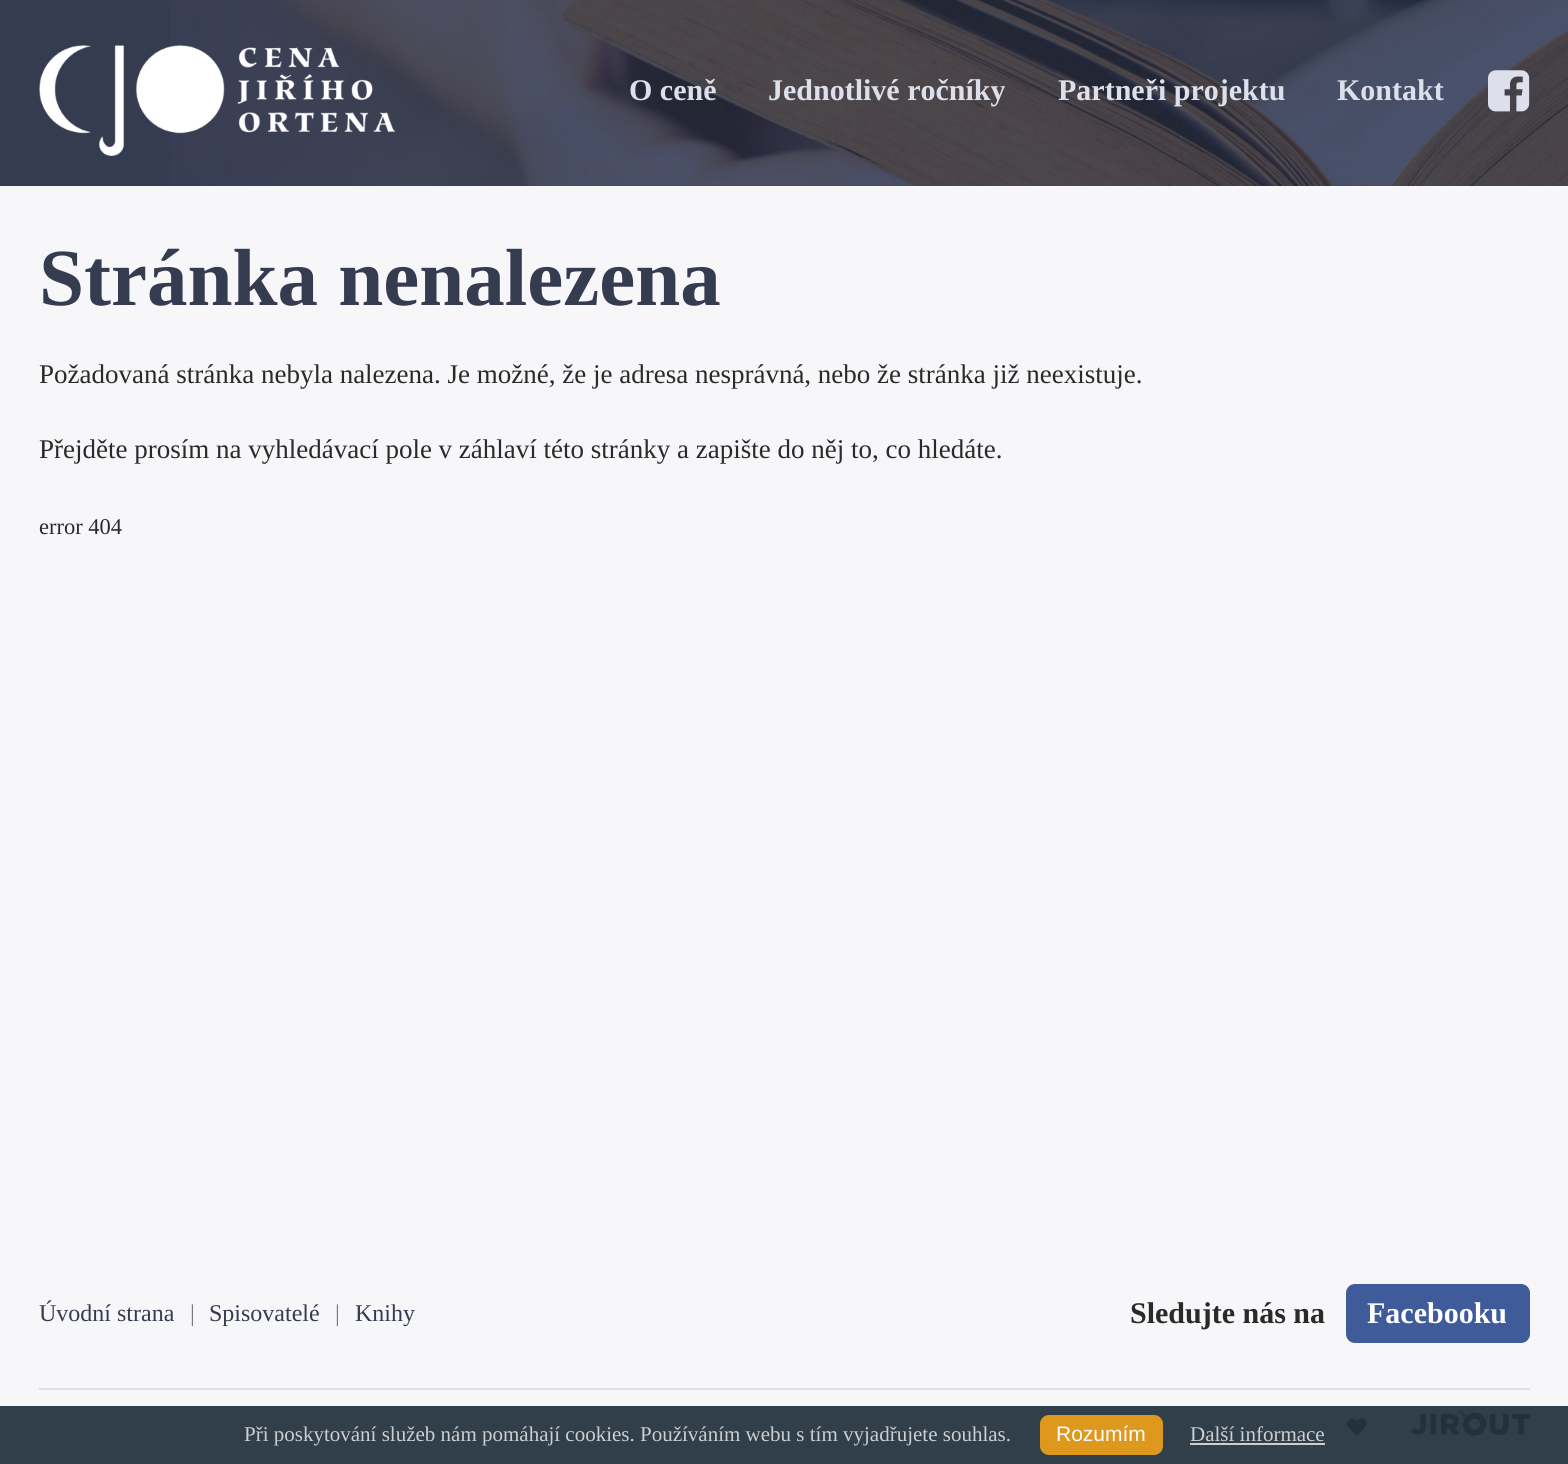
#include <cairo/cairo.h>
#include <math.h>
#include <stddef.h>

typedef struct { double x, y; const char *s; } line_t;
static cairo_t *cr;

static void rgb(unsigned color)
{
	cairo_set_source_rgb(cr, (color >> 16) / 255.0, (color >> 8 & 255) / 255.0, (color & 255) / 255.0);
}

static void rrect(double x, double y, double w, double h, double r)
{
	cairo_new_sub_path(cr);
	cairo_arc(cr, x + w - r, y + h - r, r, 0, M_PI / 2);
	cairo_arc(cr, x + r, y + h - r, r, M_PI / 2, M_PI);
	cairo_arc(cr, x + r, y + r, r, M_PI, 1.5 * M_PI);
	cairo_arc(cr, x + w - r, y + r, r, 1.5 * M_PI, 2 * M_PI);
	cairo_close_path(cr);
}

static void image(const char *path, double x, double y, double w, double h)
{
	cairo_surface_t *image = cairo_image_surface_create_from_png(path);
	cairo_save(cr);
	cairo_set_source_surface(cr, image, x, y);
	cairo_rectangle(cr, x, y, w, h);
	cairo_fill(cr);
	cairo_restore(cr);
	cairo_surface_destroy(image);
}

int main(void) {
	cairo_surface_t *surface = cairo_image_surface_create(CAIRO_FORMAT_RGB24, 1568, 1464);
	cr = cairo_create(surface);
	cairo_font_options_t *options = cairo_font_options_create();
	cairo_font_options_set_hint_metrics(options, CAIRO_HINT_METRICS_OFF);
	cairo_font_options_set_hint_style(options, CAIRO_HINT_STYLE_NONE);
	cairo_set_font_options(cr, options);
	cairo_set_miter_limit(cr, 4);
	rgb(0xf7f7fa);
	cairo_paint(cr);
	rgb(0x313f4a);
	cairo_rectangle(cr, 0, 1406, 1568, 58);
	cairo_fill(cr);
	rgb(0x363c4f);
	cairo_rectangle(cr, 0, 0, 171, 186);
	cairo_fill(cr);
	image("img/1.png", 171, 0, 1397, 186);
	image("img/2.png", 39, 45, 357, 111);
	image("img/3.png", 1488, 70, 42, 42);
	rgb(0x3f5b9a);
	rrect(1346, 1284, 184, 59, 9);
	cairo_fill(cr);
	rgb(0xe1e1e1);
	cairo_rectangle(cr, 39, 1388, 1491, 2);
	cairo_fill(cr);
	image("img/4.png", 1347, 1418, 20, 18);
	image("img/5.png", 1411, 1410, 119, 27);
	rgb(0xde981d);
	rrect(1041, 1416, 121, 38, 8);
	cairo_fill_preserve(cr);
	cairo_stroke(cr);
	rgb(0xcbcfd2);
	cairo_rectangle(cr, 1190, 1443, 135, 2);
	cairo_fill(cr);
	cairo_select_font_face(cr, "Liberation Serif", CAIRO_FONT_SLANT_NORMAL, CAIRO_FONT_WEIGHT_BOLD);
	cairo_set_font_size(cr, 30);
	rgb(0xdde0eb);
	{
		static const line_t items[] = {
			{629, 100, "O ceně"},
			{768, 100, "Jednotlivé ročníky"},
			{1058, 100, "Partneři projektu"},
			{1337, 100, "Kontakt"},
		};
		for (size_t i = 0; i < sizeof items / sizeof *items; i++) {
			cairo_move_to(cr, items[i].x, items[i].y);
			cairo_show_text(cr, items[i].s);
		}
	}
	cairo_set_font_size(cr, 81);
	rgb(0x363c4f);
	cairo_move_to(cr, 39, 305);
	cairo_show_text(cr, "Stránka nenalezena");
	cairo_select_font_face(cr, "Liberation Serif", CAIRO_FONT_SLANT_NORMAL, CAIRO_FONT_WEIGHT_NORMAL);
	cairo_set_font_size(cr, 27);
	rgb(0x2a2a2a);
	cairo_move_to(cr, 39, 383);
	cairo_show_text(cr, "Požadovaná stránka nebyla nalezena. Je možné, že je adresa nesprávná, nebo že stránka již neexistuje.");
	cairo_move_to(cr, 39, 458);
	cairo_show_text(cr, "Přejděte prosím na vyhledávací pole v záhlaví této stránky a zapište do něj to, co hledáte.");
	cairo_set_font_size(cr, 22.5);
	cairo_move_to(cr, 39, 534);
	cairo_show_text(cr, "error 404");
	cairo_set_font_size(cr, 24);
	rgb(0x363c4f);
	cairo_move_to(cr, 39, 1321);
	cairo_show_text(cr, "Úvodní strana");
	rgb(0x7a7a7a);
	cairo_move_to(cr, 190, 1321);
	cairo_show_text(cr, "|");
	rgb(0x363c4f);
	cairo_move_to(cr, 209, 1321);
	cairo_show_text(cr, "Spisovatelé");
	rgb(0x7a7a7a);
	cairo_move_to(cr, 335, 1321);
	cairo_show_text(cr, "|");
	rgb(0x363c4f);
	cairo_move_to(cr, 355, 1321);
	cairo_show_text(cr, "Knihy");
	cairo_select_font_face(cr, "Liberation Serif", CAIRO_FONT_SLANT_NORMAL, CAIRO_FONT_WEIGHT_BOLD);
	cairo_set_font_size(cr, 30);
	rgb(0x2a2a2a);
	cairo_move_to(cr, 1130, 1323);
	cairo_show_text(cr, "Sledujte nás na");
	rgb(0xffffff);
	cairo_move_to(cr, 1367, 1323);
	cairo_show_text(cr, "Facebooku");
	cairo_select_font_face(cr, "Liberation Serif", CAIRO_FONT_SLANT_NORMAL, CAIRO_FONT_WEIGHT_NORMAL);
	cairo_set_font_size(cr, 21);
	rgb(0xcbcfd2);
	cairo_move_to(cr, 244, 1441);
	cairo_show_text(cr, "Při poskytování služeb nám pomáhají cookies. Používáním webu s tím vyjadřujete souhlas.");
	cairo_select_font_face(cr, "Liberation Sans", CAIRO_FONT_SLANT_NORMAL, CAIRO_FONT_WEIGHT_NORMAL);
	rgb(0xffffff);
	cairo_move_to(cr, 1056, 1441);
	cairo_show_text(cr, "Rozumím");
	cairo_select_font_face(cr, "Liberation Serif", CAIRO_FONT_SLANT_NORMAL, CAIRO_FONT_WEIGHT_NORMAL);
	rgb(0xcbcfd2);
	cairo_move_to(cr, 1190, 1441);
	cairo_show_text(cr, "Další informace");
	cairo_surface_write_to_png(surface, "page.png");
	cairo_font_options_destroy(options);
	cairo_destroy(cr);
	cairo_surface_destroy(surface);
	return 0;
}
